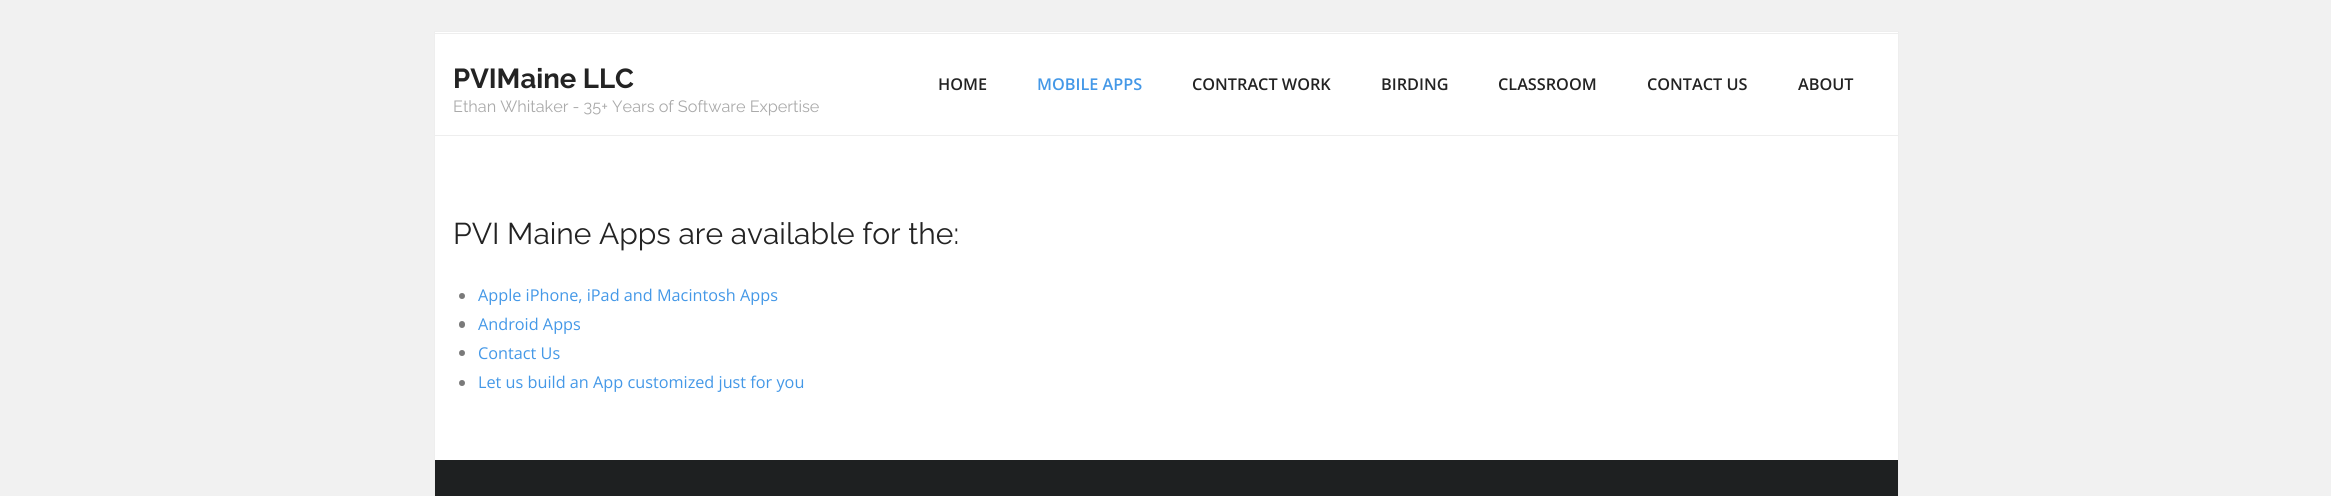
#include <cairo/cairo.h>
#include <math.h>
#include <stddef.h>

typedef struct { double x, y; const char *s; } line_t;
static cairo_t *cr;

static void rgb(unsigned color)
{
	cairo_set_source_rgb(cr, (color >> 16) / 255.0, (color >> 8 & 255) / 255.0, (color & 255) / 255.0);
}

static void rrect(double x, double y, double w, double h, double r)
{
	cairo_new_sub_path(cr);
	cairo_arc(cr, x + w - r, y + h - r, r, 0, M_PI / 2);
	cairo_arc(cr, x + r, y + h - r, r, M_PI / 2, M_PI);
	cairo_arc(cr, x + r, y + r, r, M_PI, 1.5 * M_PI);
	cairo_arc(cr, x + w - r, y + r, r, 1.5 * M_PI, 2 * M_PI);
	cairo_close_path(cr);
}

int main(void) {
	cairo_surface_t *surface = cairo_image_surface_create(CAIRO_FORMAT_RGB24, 2331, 496);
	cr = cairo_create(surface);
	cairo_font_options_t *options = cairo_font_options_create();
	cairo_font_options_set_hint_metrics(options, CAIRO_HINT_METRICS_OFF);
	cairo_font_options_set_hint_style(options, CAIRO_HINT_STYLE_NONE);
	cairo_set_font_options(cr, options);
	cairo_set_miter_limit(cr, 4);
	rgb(0xf1f1f1);
	cairo_paint(cr);
	rgb(0xffffff);
	cairo_rectangle(cr, 435, 32, 1463, 428);
	cairo_fill(cr);
	cairo_rectangle(cr, 434.5, 31.5, 1464, 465);
	rgb(0xeeeeee);
	cairo_set_line_width(cr, 1);
	cairo_stroke(cr);
	cairo_rectangle(cr, 435, 33, 1463, 1);
	cairo_fill(cr);
	cairo_rectangle(cr, 435, 135, 1463, 1);
	cairo_fill(cr);
	rgb(0x7a7a7a);
	cairo_arc(cr, 462, 296, 3, 0, 2 * M_PI);
	cairo_fill(cr);
	rrect(459, 321, 6, 7, 3);
	cairo_fill(cr);
	cairo_arc(cr, 462, 353, 3, 0, 2 * M_PI);
	cairo_fill(cr);
	cairo_arc(cr, 462, 383, 3, 0, 2 * M_PI);
	cairo_fill(cr);
	rgb(0x1e2021);
	cairo_rectangle(cr, 435, 460, 1463, 36);
	cairo_fill(cr);
	cairo_select_font_face(cr, "Raleway", CAIRO_FONT_SLANT_NORMAL, CAIRO_FONT_WEIGHT_BOLD);
	cairo_set_font_size(cr, 27.5);
	rgb(0x232323);
	cairo_move_to(cr, 453, 88);
	cairo_show_text(cr, "PVIMaine LLC");
	cairo_select_font_face(cr, "Raleway", CAIRO_FONT_SLANT_NORMAL, CAIRO_FONT_WEIGHT_NORMAL);
	cairo_set_font_size(cr, 16.25);
	rgb(0xaaaaaa);
	cairo_move_to(cr, 453, 112);
	cairo_show_text(cr, "Ethan Whitaker - 35+ Years of Software Expertise");
	cairo_select_font_face(cr, "Open Sans SemiBold", CAIRO_FONT_SLANT_NORMAL, CAIRO_FONT_WEIGHT_NORMAL);
	rgb(0x232323);
	cairo_move_to(cr, 938, 90);
	cairo_show_text(cr, "HOME");
	rgb(0x4498e7);
	cairo_move_to(cr, 1037, 90);
	cairo_show_text(cr, "MOBILE APPS");
	rgb(0x232323);
	{
		static const line_t items[] = {
			{1192, 90, "CONTRACT WORK"},
			{1381, 90, "BIRDING"},
			{1498, 90, "CLASSROOM"},
			{1647, 90, "CONTACT US"},
			{1798, 90, "ABOUT"},
		};
		for (size_t i = 0; i < sizeof items / sizeof *items; i++) {
			cairo_move_to(cr, items[i].x, items[i].y);
			cairo_show_text(cr, items[i].s);
		}
	}
	cairo_select_font_face(cr, "Raleway", CAIRO_FONT_SLANT_NORMAL, CAIRO_FONT_WEIGHT_NORMAL);
	cairo_set_font_size(cr, 30);
	cairo_move_to(cr, 453, 244);
	cairo_show_text(cr, "PVI Maine Apps are available for the:");
	cairo_select_font_face(cr, "Open Sans", CAIRO_FONT_SLANT_NORMAL, CAIRO_FONT_WEIGHT_NORMAL);
	cairo_set_font_size(cr, 16.25);
	rgb(0x4498e7);
	{
		static const line_t items[] = {
			{478, 301, "Apple iPhone, iPad and Macintosh Apps"},
			{478, 330, "Android Apps"},
			{478, 359, "Contact Us"},
			{478, 388, "Let us build an App customized just for you"},
		};
		for (size_t i = 0; i < sizeof items / sizeof *items; i++) {
			cairo_move_to(cr, items[i].x, items[i].y);
			cairo_show_text(cr, items[i].s);
		}
	}
	cairo_surface_write_to_png(surface, "page.png");
	cairo_font_options_destroy(options);
	cairo_destroy(cr);
	cairo_surface_destroy(surface);
	return 0;
}
